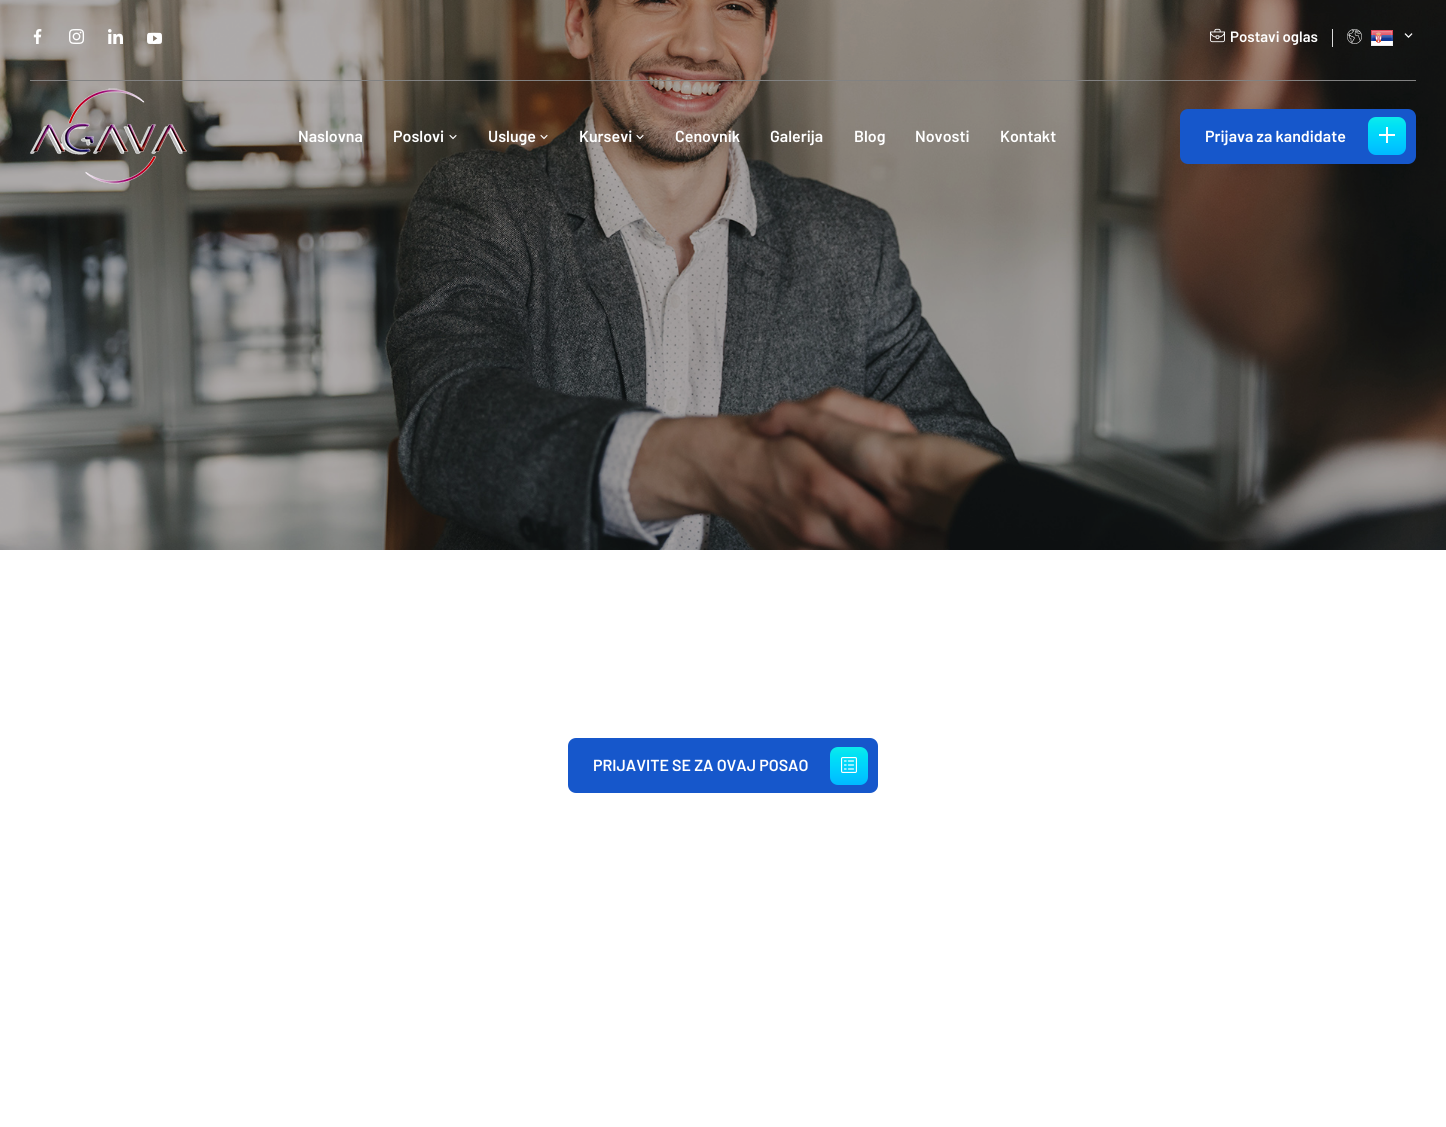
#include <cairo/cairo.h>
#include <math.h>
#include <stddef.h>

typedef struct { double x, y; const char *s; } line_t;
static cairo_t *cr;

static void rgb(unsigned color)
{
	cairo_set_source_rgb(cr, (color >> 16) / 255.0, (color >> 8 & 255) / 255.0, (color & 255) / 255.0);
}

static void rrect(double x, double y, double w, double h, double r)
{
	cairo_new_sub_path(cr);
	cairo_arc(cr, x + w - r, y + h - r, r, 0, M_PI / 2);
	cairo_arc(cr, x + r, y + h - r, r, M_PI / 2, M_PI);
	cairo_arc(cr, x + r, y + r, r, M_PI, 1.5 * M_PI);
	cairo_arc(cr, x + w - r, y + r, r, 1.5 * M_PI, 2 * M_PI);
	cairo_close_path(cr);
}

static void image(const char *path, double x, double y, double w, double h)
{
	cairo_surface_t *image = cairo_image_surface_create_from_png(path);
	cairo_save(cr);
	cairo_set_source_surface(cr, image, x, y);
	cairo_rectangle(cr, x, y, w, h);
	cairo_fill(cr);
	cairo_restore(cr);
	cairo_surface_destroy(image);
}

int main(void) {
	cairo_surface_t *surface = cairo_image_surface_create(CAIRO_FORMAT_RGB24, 1446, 1127);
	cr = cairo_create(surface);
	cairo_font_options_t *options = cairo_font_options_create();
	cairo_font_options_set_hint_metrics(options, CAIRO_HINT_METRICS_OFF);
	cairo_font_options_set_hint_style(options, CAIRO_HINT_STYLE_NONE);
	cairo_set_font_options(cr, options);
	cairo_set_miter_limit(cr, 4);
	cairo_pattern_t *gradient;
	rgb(0xffffff);
	cairo_paint(cr);
	image("img/1.png", 0, 0, 1446, 550);
	image("img/2.png", 33, 29, 9, 15);
	image("img/3.png", 69, 29, 16, 15);
	image("img/4.png", 108, 29, 15, 15);
	image("img/5.png", 147, 32, 15, 12);
	image("img/6.png", 1210, 28, 15, 15);
	rgb(0xdbdbdb);
	cairo_rectangle(cr, 1332, 29, 1, 18);
	cairo_fill(cr);
	image("img/7.png", 1347, 29, 15, 15);
	image("img/8.png", 1371, 30, 22, 17);
	image("img/9.png", 1404, 33, 9, 5);
	rgb(0x828282);
	cairo_rectangle(cr, 30, 80, 1386, 1);
	cairo_fill(cr);
	image("img/10.png", 30, 88, 157, 96);
	image("img/11.png", 449, 134, 8, 6);
	image("img/12.png", 540, 134, 8, 6);
	image("img/13.png", 636, 134, 8, 6);
	rgb(0x1657cb);
	rrect(1180, 109, 236, 55, 8);
	cairo_fill(cr);
	gradient = cairo_pattern_create_linear(1387, 155, 1387, 117);
	cairo_pattern_add_color_stop_rgba(gradient, 0, 0, 0.725, 1, 1);
	cairo_pattern_add_color_stop_rgba(gradient, 0.25, 0, 0.78, 1, 1);
	cairo_pattern_add_color_stop_rgba(gradient, 0.5, 0, 0.831, 0.988, 1);
	cairo_pattern_add_color_stop_rgba(gradient, 0.75, 0, 0.878, 0.961, 1);
	cairo_pattern_add_color_stop_rgba(gradient, 1, 0.047, 0.922, 0.922, 1);
	cairo_set_source(cr, gradient);
	cairo_pattern_destroy(gradient);
	rrect(1368, 117, 38, 38, 8);
	cairo_fill(cr);
	image("img/14.png", 1379, 127, 16, 16);
	rgb(0x1657cb);
	rrect(568, 738, 310, 55, 8);
	cairo_fill(cr);
	gradient = cairo_pattern_create_linear(849, 785, 849, 747);
	cairo_pattern_add_color_stop_rgba(gradient, 0, 0, 0.725, 1, 1);
	cairo_pattern_add_color_stop_rgba(gradient, 0.25, 0, 0.78, 1, 1);
	cairo_pattern_add_color_stop_rgba(gradient, 0.5, 0, 0.831, 0.988, 1);
	cairo_pattern_add_color_stop_rgba(gradient, 0.75, 0, 0.878, 0.961, 1);
	cairo_pattern_add_color_stop_rgba(gradient, 1, 0.047, 0.922, 0.922, 1);
	cairo_set_source(cr, gradient);
	cairo_pattern_destroy(gradient);
	rrect(830, 747, 38, 38, 8);
	cairo_fill(cr);
	image("img/15.png", 841, 757, 16, 16);
	cairo_select_font_face(cr, "Barlow SemiBold", CAIRO_FONT_SLANT_NORMAL, CAIRO_FONT_WEIGHT_NORMAL);
	cairo_set_font_size(cr, 15);
	rgb(0xffffff);
	cairo_move_to(cr, 1230, 42);
	cairo_show_text(cr, "Postavi oglas");
	cairo_set_font_size(cr, 16);
	{
		static const line_t items[] = {
			{298, 142, "Naslovna"},
			{393, 142, "Poslovi"},
			{488, 142, "Usluge"},
			{579, 142, "Kursevi"},
			{675, 142, "Cenovnik"},
			{770, 142, "Galerija"},
			{854, 142, "Blog"},
			{915, 142, "Novosti"},
			{1000, 142, "Kontakt"},
			{1205, 142, "Prijava za kandidate"},
			{593, 771, "PRIJAVITE SE ZA OVAJ POSAO"},
		};
		for (size_t i = 0; i < sizeof items / sizeof *items; i++) {
			cairo_move_to(cr, items[i].x, items[i].y);
			cairo_show_text(cr, items[i].s);
		}
	}
	cairo_surface_write_to_png(surface, "page.png");
	cairo_font_options_destroy(options);
	cairo_destroy(cr);
	cairo_surface_destroy(surface);
	return 0;
}
